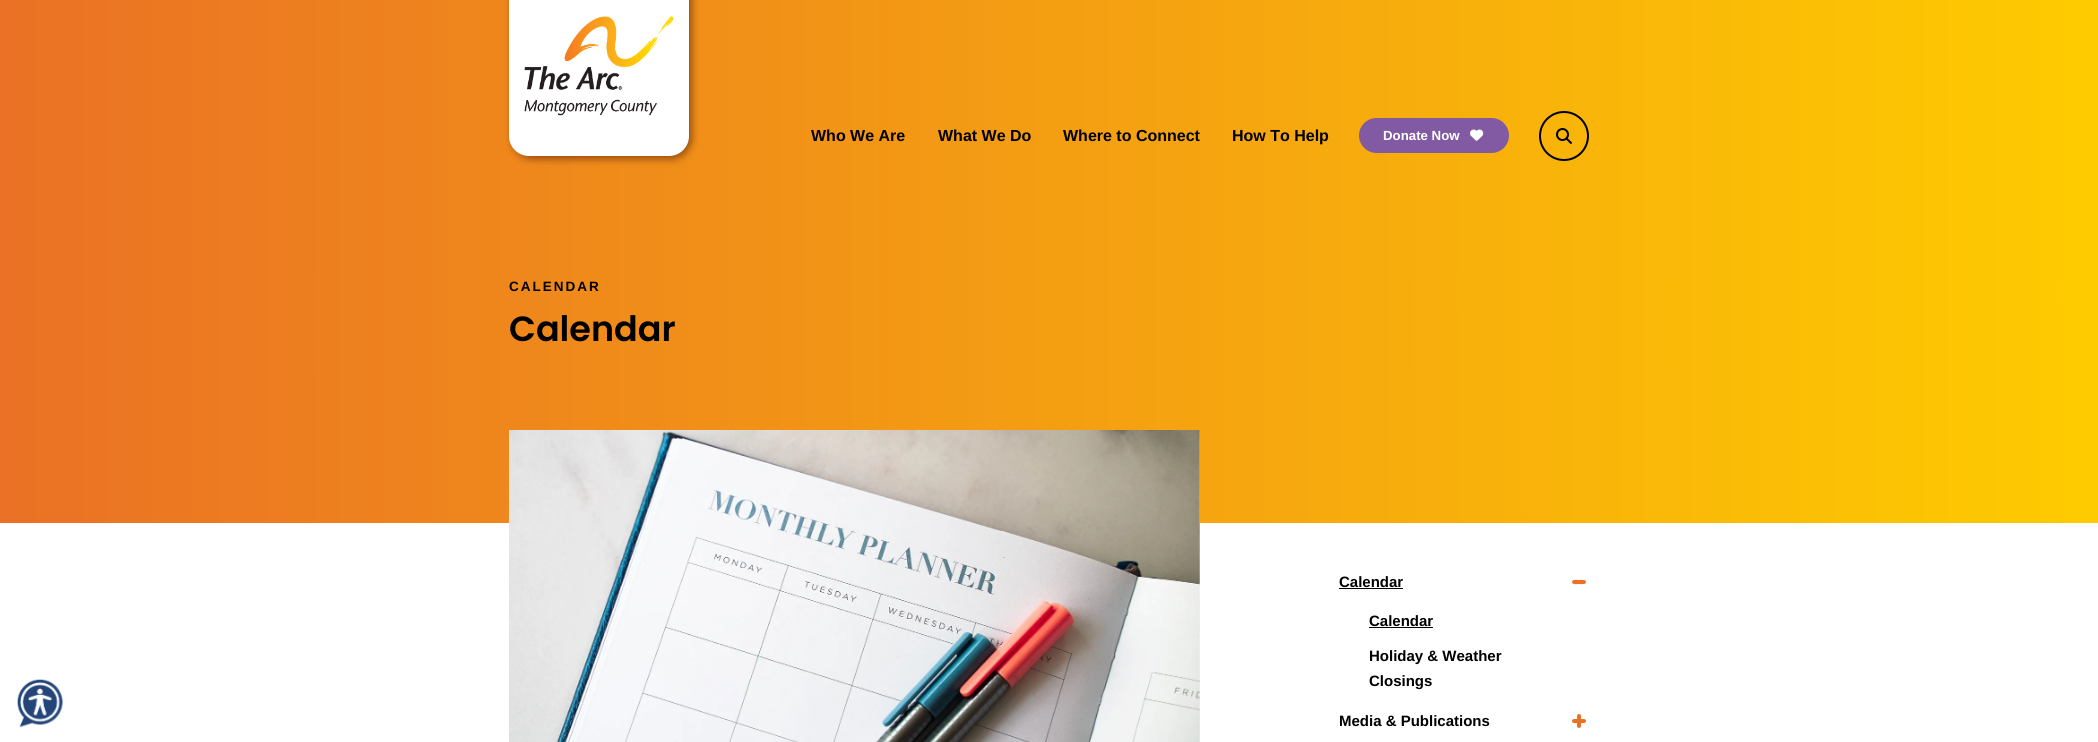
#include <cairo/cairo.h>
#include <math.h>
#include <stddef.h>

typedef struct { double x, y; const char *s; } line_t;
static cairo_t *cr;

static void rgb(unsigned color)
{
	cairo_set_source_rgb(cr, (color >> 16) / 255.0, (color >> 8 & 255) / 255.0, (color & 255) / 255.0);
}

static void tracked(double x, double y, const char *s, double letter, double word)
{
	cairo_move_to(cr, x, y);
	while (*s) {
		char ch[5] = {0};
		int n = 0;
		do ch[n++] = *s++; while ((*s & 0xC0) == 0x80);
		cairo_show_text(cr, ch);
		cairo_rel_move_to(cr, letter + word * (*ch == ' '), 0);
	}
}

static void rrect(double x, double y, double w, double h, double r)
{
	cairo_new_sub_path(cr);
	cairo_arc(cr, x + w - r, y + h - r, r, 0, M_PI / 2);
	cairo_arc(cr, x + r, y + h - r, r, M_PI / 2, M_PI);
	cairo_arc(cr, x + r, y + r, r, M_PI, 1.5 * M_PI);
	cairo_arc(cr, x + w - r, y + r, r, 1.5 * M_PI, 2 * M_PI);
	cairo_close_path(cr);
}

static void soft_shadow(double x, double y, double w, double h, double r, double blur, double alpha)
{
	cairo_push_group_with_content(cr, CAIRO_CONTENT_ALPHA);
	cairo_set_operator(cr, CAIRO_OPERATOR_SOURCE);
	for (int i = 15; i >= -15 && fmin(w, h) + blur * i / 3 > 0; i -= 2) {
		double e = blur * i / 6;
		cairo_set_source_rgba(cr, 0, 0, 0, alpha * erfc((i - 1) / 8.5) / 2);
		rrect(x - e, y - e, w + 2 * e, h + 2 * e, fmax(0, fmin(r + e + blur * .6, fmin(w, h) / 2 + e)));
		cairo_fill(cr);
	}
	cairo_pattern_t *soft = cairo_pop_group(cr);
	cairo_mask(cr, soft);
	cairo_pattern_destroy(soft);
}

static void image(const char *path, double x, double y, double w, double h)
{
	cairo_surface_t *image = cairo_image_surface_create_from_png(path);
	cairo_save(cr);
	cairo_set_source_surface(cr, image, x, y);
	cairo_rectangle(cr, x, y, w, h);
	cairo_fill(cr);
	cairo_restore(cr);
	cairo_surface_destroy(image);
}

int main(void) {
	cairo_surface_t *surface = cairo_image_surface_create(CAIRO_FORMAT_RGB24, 2098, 742);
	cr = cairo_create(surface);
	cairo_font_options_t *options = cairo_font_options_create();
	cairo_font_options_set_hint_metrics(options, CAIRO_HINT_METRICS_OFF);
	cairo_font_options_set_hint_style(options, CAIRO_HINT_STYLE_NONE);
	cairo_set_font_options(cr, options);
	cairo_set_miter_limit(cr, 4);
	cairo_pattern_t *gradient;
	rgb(0xffffff);
	cairo_paint(cr);
	gradient = cairo_pattern_create_linear(0, 136, 2098, 136);
	cairo_pattern_add_color_stop_rgba(gradient, 0, 0.918, 0.443, 0.145, 1);
	cairo_pattern_add_color_stop_rgba(gradient, 1, 0.996, 0.796, 0, 1);
	cairo_set_source(cr, gradient);
	cairo_pattern_destroy(gradient);
	cairo_rectangle(cr, 0, 0, 2098, 276);
	cairo_fill(cr);
	rgb(0x6c300a);
	soft_shadow(512, -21, 180, 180, 20, 4, 0.7);
	rgb(0xffffff);
	rrect(509, -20, 180, 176, 20);
	cairo_fill(cr);
	image("img/1.png", 524, 16, 150, 100);
	rgb(0x825aa4);
	rrect(1359, 118, 150, 35, 17.5);
	cairo_fill(cr);
	image("img/2.png", 1470, 129, 14, 12);
	cairo_arc(cr, 1564, 136, 24, 0, 2 * M_PI);
	rgb(0x000000);
	cairo_stroke(cr);
	image("img/3.png", 1556, 128, 16, 16);
	gradient = cairo_pattern_create_linear(0, 400, 2098, 399);
	cairo_pattern_add_color_stop_rgba(gradient, 0, 0.918, 0.443, 0.145, 1);
	cairo_pattern_add_color_stop_rgba(gradient, 1, 0.996, 0.796, 0, 1);
	cairo_set_source(cr, gradient);
	cairo_pattern_destroy(gradient);
	cairo_rectangle(cr, 0, 276, 2098, 247);
	cairo_fill(cr);
	image("img/4.png", 509, 430, 691, 312);
	image("img/5.png", 17, 679, 46, 49);
	rgb(0x000000);
	cairo_rectangle(cr, 1339, 588, 64, 1);
	cairo_fill(cr);
	rgb(0xea7125);
	cairo_new_path(cr);
	cairo_move_to(cr, 1586, 582);
	cairo_curve_to(cr, 1586, 585, 1580.5, 584, 1579, 584);
	cairo_curve_to(cr, 1577.5, 584, 1572, 585, 1572, 582);
	cairo_curve_to(cr, 1572, 579, 1577.5, 580, 1579, 580);
	cairo_curve_to(cr, 1580.5, 580, 1586, 579, 1586, 582);
	cairo_close_path(cr);
	cairo_fill(cr);
	rgb(0x000000);
	cairo_rectangle(cr, 1369, 627, 64, 1);
	cairo_fill(cr);
	rgb(0xea7125);
	rrect(1577, 714, 4, 14, 2);
	cairo_fill(cr);
	rrect(1572, 719, 14, 4, 2);
	cairo_fill(cr);
	cairo_select_font_face(cr, "Liberation Sans", CAIRO_FONT_SLANT_NORMAL, CAIRO_FONT_WEIGHT_BOLD);
	cairo_set_font_size(cr, 16);
	rgb(0x000000);
	{
		static const line_t items[] = {
			{811, 141, "Who We Are"},
			{938, 141, "What We Do"},
			{1063, 141, "Where to Connect"},
			{1232, 141, "How To Help"},
		};
		for (size_t i = 0; i < sizeof items / sizeof *items; i++) {
			cairo_move_to(cr, items[i].x, items[i].y);
			cairo_show_text(cr, items[i].s);
		}
	}
	cairo_set_font_size(cr, 13.25);
	rgb(0xffffff);
	cairo_move_to(cr, 1383, 140);
	cairo_show_text(cr, "Donate Now");
	cairo_set_font_size(cr, 13.5);
	rgb(0x000000);
	tracked(509, 291, "CALENDAR", 2, 0);
	cairo_select_font_face(cr, "Poppins SemiBold", CAIRO_FONT_SLANT_NORMAL, CAIRO_FONT_WEIGHT_NORMAL);
	cairo_set_font_size(cr, 35);
	cairo_move_to(cr, 509, 341);
	cairo_show_text(cr, "Calendar");
	cairo_select_font_face(cr, "Liberation Sans", CAIRO_FONT_SLANT_NORMAL, CAIRO_FONT_WEIGHT_BOLD);
	cairo_set_font_size(cr, 15);
	{
		static const line_t items[] = {
			{1339, 587, "Calendar"},
			{1369, 626, "Calendar"},
			{1369, 661, "Holiday & Weather"},
			{1369, 686, "Closings"},
			{1339, 726, "Media & Publications"},
		};
		for (size_t i = 0; i < sizeof items / sizeof *items; i++) {
			cairo_move_to(cr, items[i].x, items[i].y);
			cairo_show_text(cr, items[i].s);
		}
	}
	cairo_surface_write_to_png(surface, "page.png");
	cairo_font_options_destroy(options);
	cairo_destroy(cr);
	cairo_surface_destroy(surface);
	return 0;
}
